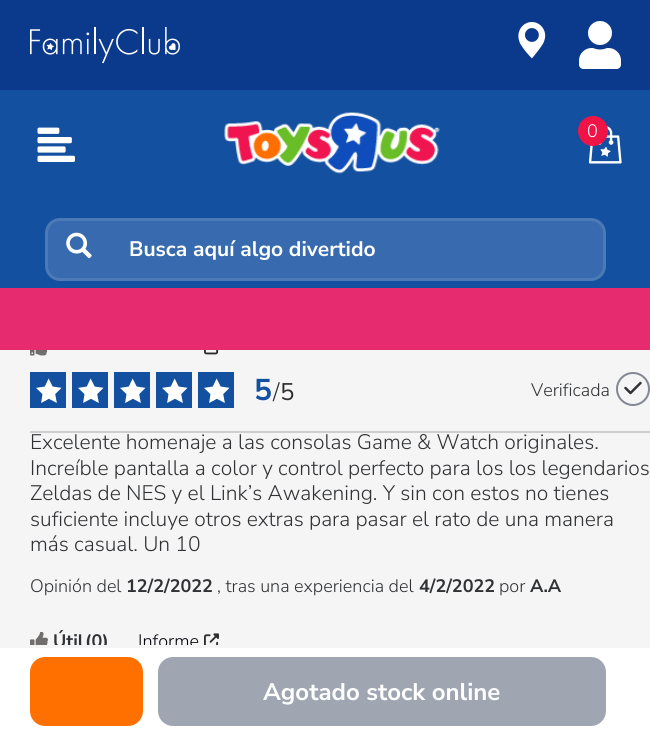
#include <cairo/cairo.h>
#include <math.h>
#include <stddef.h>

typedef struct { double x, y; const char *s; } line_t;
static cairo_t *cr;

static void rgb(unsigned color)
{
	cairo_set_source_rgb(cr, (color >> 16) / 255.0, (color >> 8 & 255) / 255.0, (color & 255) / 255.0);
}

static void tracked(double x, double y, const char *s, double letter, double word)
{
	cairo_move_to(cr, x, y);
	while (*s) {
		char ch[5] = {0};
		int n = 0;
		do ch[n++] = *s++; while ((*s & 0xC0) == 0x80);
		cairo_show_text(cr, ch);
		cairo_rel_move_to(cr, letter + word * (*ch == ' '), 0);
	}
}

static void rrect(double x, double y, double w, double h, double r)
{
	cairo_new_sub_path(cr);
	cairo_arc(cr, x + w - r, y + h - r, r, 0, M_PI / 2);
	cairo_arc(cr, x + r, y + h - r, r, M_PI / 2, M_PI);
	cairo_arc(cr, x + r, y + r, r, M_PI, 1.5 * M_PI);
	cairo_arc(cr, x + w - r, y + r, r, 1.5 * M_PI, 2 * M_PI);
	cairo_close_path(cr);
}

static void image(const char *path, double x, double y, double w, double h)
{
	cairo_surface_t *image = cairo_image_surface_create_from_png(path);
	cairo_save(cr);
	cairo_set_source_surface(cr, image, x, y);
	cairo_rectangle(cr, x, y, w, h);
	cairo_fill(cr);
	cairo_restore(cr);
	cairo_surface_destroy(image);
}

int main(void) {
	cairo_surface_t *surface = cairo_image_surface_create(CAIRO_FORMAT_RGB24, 650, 734);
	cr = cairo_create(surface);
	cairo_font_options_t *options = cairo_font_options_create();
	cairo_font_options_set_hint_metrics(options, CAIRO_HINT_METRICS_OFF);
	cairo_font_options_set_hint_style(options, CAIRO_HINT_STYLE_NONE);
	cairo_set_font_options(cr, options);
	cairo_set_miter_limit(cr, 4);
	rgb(0xf5f5f5);
	cairo_paint(cr);
	rgb(0x1450a0);
	cairo_rectangle(cr, 0, 90, 650, 198);
	cairo_fill(cr);
	rgb(0x0b3a8c);
	cairo_rectangle(cr, 0, 0, 650, 90);
	cairo_fill(cr);
	image("img/1.png", 30, 26, 150, 38);
	image("img/2.png", 518, 22, 28, 37);
	image("img/3.png", 579, 21, 42, 48);
	image("img/4.png", 37, 127, 38, 35);
	image("img/5.png", 224, 112, 216, 62);
	image("img/6.png", 589, 126, 33, 38);
	rgb(0xf01446);
	cairo_arc(cr, 593, 131, 15, 0, 2 * M_PI);
	cairo_fill(cr);
	rgb(0x376aae);
	rrect(46.5, 219.5, 558, 60, 13.5);
	cairo_fill_preserve(cr);
	rgb(0x4c7ab7);
	cairo_set_line_width(cr, 3);
	cairo_stroke(cr);
	image("img/7.png", 66, 232, 26, 27);
	rgb(0xe72b6f);
	cairo_rectangle(cr, 0, 288, 650, 62);
	cairo_fill(cr);
	image("img/8.png", 30, 350, 18, 6);
	image("img/9.png", 204, 350, 15, 5);
	rgb(0xcfcece);
	cairo_rectangle(cr, 30, 431, 620, 2);
	cairo_fill(cr);
	rgb(0x1450a0);
	cairo_rectangle(cr, 30, 372, 36, 36);
	cairo_fill(cr);
	image("img/10.png", 36, 378, 26, 25);
	cairo_rectangle(cr, 72, 372, 36, 36);
	cairo_fill(cr);
	image("img/10.png", 78, 378, 26, 25);
	cairo_rectangle(cr, 114, 372, 36, 36);
	cairo_fill(cr);
	image("img/10.png", 120, 378, 26, 25);
	cairo_rectangle(cr, 156, 372, 36, 36);
	cairo_fill(cr);
	image("img/10.png", 162, 378, 26, 25);
	cairo_rectangle(cr, 198, 372, 36, 36);
	cairo_fill(cr);
	image("img/10.png", 204, 378, 26, 25);
	image("img/11.png", 616, 372, 34, 34);
	image("img/12.png", 30, 632, 18, 13);
	image("img/13.png", 204, 633, 15, 12);
	cairo_select_font_face(cr, "Nunito Sans Light", CAIRO_FONT_SLANT_NORMAL, CAIRO_FONT_WEIGHT_NORMAL);
	cairo_set_font_size(cr, 18);
	rgb(0xffffff);
	cairo_move_to(cr, 587, 137);
	cairo_show_text(cr, "0");
	cairo_select_font_face(cr, "Nunito Sans", CAIRO_FONT_SLANT_NORMAL, CAIRO_FONT_WEIGHT_BOLD);
	cairo_set_font_size(cr, 21);
	cairo_move_to(cr, 129, 256);
	cairo_show_text(cr, "Busca aquí algo divertido");
	cairo_set_font_size(cr, 30);
	rgb(0x1450a0);
	tracked(254, 400, "5", 1, 0);
	cairo_select_font_face(cr, "Nunito Sans Light", CAIRO_FONT_SLANT_NORMAL, CAIRO_FONT_WEIGHT_NORMAL);
	cairo_set_font_size(cr, 24);
	rgb(0x2f2e2e);
	tracked(273, 400, "/", 1, 0);
	cairo_select_font_face(cr, "Nunito Sans", CAIRO_FONT_SLANT_NORMAL, CAIRO_FONT_WEIGHT_NORMAL);
	tracked(280, 400, "5", 1, 0);
	cairo_select_font_face(cr, "Nunito Sans Light", CAIRO_FONT_SLANT_NORMAL, CAIRO_FONT_WEIGHT_NORMAL);
	cairo_set_font_size(cr, 18);
	rgb(0x313235);
	cairo_move_to(cr, 531, 396);
	cairo_show_text(cr, "Verificada");
	cairo_set_font_size(cr, 21);
	{
		static const line_t items[] = {
			{30, 449, "Excelente homenaje a las consolas Game & Watch originales."},
			{30, 475, "Increíble pantalla a color y control perfecto para los los legendarios"},
			{30, 500, "Zeldas de NES y el Link’s Awakening. Y sin con estos no tienes"},
			{30, 526, "suficiente incluye otros extras para pasar el rato de una manera"},
			{30, 551, "más casual. Un 10"},
		};
		for (size_t i = 0; i < sizeof items / sizeof *items; i++) {
			cairo_move_to(cr, items[i].x, items[i].y);
			cairo_show_text(cr, items[i].s);
		}
	}
	cairo_set_font_size(cr, 18);
	cairo_move_to(cr, 30, 592);
	cairo_show_text(cr, "Opinión del");
	cairo_select_font_face(cr, "Nunito Sans", CAIRO_FONT_SLANT_NORMAL, CAIRO_FONT_WEIGHT_BOLD);
	cairo_move_to(cr, 126, 592);
	cairo_show_text(cr, "12/2/2022");
	cairo_select_font_face(cr, "Nunito Sans Light", CAIRO_FONT_SLANT_NORMAL, CAIRO_FONT_WEIGHT_NORMAL);
	cairo_move_to(cr, 217, 592);
	cairo_show_text(cr, ", tras una experiencia del");
	cairo_select_font_face(cr, "Nunito Sans", CAIRO_FONT_SLANT_NORMAL, CAIRO_FONT_WEIGHT_BOLD);
	cairo_move_to(cr, 419, 592);
	cairo_show_text(cr, "4/2/2022");
	cairo_select_font_face(cr, "Nunito Sans Light", CAIRO_FONT_SLANT_NORMAL, CAIRO_FONT_WEIGHT_NORMAL);
	cairo_move_to(cr, 499, 592);
	cairo_show_text(cr, "por");
	cairo_select_font_face(cr, "Nunito Sans", CAIRO_FONT_SLANT_NORMAL, CAIRO_FONT_WEIGHT_BOLD);
	{
		static const line_t items[] = {
			{530, 592, "A.A"},
			{53, 647, "Útil"},
			{85, 647, "(0)"},
		};
		for (size_t i = 0; i < sizeof items / sizeof *items; i++) {
			cairo_move_to(cr, items[i].x, items[i].y);
			cairo_show_text(cr, items[i].s);
		}
	}
	cairo_select_font_face(cr, "Nunito Sans Light", CAIRO_FONT_SLANT_NORMAL, CAIRO_FONT_WEIGHT_NORMAL);
	rgb(0x03030a);
	cairo_move_to(cr, 138, 647);
	cairo_show_text(cr, "Informe");
	rgb(0xffffff);
	cairo_rectangle(cr, 0, 648, 650, 86);
	cairo_fill(cr);
	rgb(0xf5f5f5);
	cairo_rectangle(cr, 54, 645, 145, 3);
	cairo_fill(cr);
	rgb(0xff7000);
	rrect(32.5, 659.5, 108, 64, 12.5);
	cairo_fill_preserve(cr);
	cairo_set_line_width(cr, 5);
	cairo_stroke(cr);
	rgb(0x9fa6b2);
	rrect(160.5, 659.5, 443, 64, 12.5);
	cairo_fill_preserve(cr);
	cairo_stroke(cr);
	cairo_select_font_face(cr, "Nunito Sans", CAIRO_FONT_SLANT_NORMAL, CAIRO_FONT_WEIGHT_BOLD);
	cairo_set_font_size(cr, 24);
	rgb(0xffffff);
	cairo_move_to(cr, 263, 700);
	cairo_show_text(cr, "Agotado stock online");
	cairo_surface_write_to_png(surface, "page.png");
	cairo_font_options_destroy(options);
	cairo_destroy(cr);
	cairo_surface_destroy(surface);
	return 0;
}
